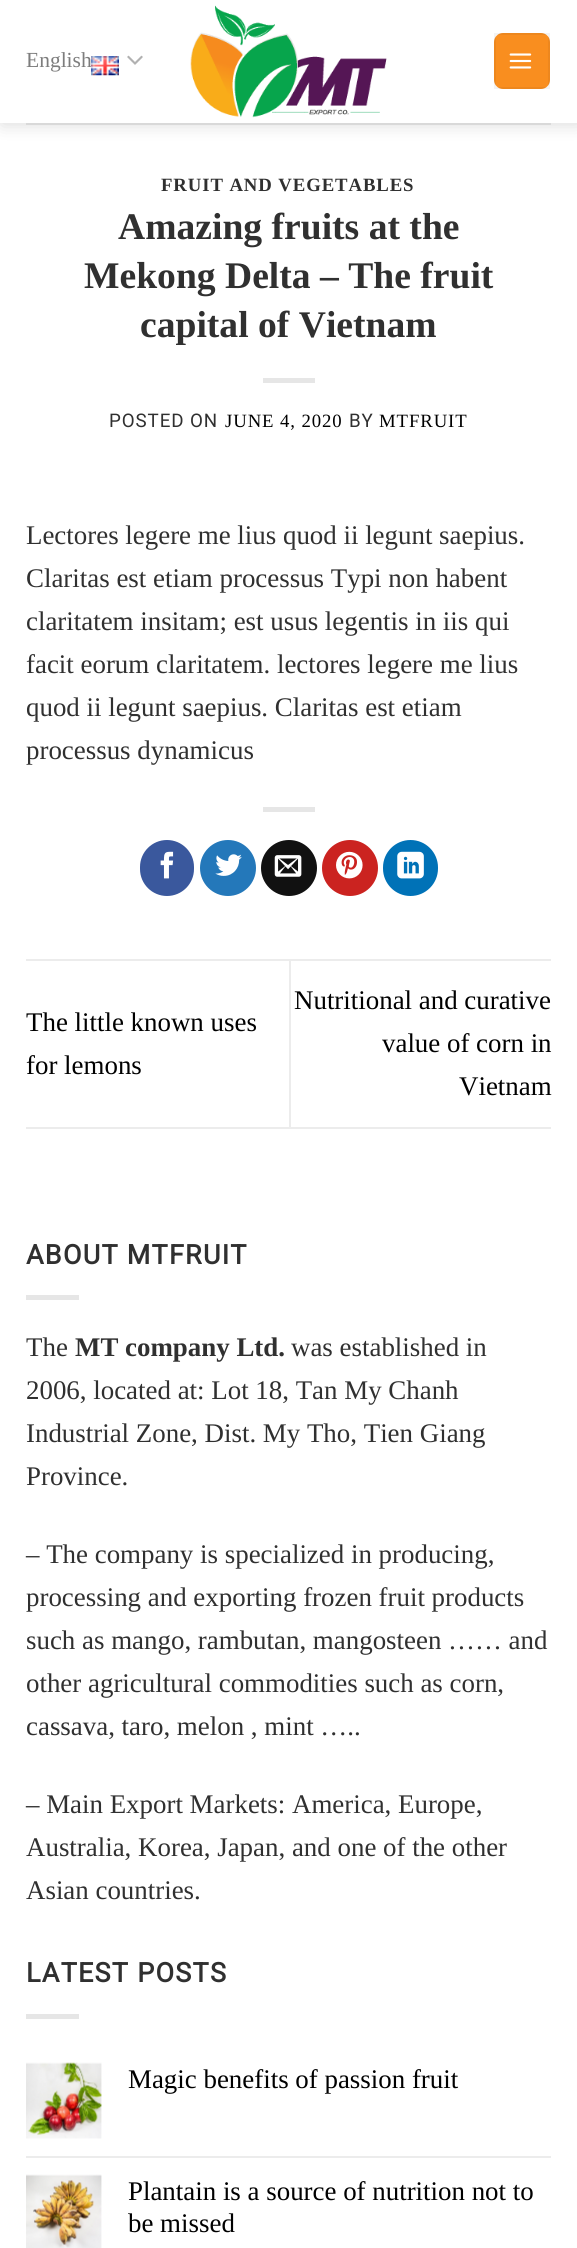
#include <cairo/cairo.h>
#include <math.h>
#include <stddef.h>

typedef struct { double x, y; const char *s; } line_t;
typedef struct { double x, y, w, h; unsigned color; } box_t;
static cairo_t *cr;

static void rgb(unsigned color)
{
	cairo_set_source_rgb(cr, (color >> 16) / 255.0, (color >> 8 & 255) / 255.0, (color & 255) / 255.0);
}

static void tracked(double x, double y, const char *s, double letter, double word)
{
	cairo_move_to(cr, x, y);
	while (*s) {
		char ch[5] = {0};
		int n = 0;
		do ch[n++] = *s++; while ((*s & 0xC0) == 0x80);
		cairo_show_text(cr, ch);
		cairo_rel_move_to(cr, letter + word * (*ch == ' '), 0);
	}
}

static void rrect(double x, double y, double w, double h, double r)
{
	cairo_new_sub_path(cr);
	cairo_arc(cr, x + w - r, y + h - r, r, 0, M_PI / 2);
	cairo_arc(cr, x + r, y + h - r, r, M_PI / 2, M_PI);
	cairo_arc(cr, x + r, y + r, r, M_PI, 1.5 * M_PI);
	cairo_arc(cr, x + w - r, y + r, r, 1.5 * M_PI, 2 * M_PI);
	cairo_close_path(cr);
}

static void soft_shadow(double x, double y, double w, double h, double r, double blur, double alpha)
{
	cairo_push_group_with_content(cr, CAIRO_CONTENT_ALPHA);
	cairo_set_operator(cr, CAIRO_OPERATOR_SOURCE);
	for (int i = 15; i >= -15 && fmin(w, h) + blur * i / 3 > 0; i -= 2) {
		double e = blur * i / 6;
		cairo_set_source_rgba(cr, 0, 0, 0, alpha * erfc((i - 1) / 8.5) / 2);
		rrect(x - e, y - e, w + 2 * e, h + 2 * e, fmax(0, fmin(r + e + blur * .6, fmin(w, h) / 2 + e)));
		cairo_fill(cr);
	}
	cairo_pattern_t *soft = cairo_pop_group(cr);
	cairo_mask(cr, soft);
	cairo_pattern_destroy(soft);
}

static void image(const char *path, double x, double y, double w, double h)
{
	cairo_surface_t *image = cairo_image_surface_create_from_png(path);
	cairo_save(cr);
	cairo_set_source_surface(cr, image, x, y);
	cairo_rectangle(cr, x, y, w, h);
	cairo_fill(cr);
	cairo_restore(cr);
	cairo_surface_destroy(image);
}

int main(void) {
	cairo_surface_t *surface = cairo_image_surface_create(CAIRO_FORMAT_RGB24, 577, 2248);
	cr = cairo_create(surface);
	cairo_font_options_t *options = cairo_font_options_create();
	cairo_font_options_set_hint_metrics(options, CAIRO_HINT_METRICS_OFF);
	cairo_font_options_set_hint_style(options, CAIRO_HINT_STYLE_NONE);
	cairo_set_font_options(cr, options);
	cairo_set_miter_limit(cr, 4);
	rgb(0xffffff);
	cairo_paint(cr);
	rgb(0x000000);
	soft_shadow(2, 2, 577, 122, 0, 9, 0.15);
	rgb(0xffffff);
	cairo_rectangle(cr, 0, 0, 577, 123);
	cairo_fill(cr);
	image("img/2.png", 127, 55, 16, 10);
	image("img/3.png", 190, 5, 197, 113);
	rgb(0xf98e1f);
	rrect(494, 33, 56, 56, 9);
	cairo_fill(cr);
	cairo_rectangle(cr, 495, 34, 54, 54);
	cairo_set_source_rgba(cr, 0, 0, 0, 0.05);
	cairo_stroke(cr);
	image("img/4.png", 509, 53, 23, 16);
	{
		static const box_t items[] = {
			{26, 123, 525, 2, 0xd9d9d9},
			{263, 378, 52, 5, 0xe6e6e6},
			{263, 807, 52, 5, 0xe6e6e6},
		};
		for (size_t i = 0; i < sizeof items / sizeof *items; i++) {
			rgb(items[i].color);
			cairo_rectangle(cr, items[i].x, items[i].y, items[i].w, items[i].h);
			cairo_fill(cr);
		}
	}
	rgb(0x3a589d);
	rrect(141, 841, 52, 54, 26);
	cairo_fill_preserve(cr);
	cairo_stroke(cr);
	image("img/5.png", 160, 851, 14, 28);
	rgb(0x2478ba);
	cairo_arc(cr, 228, 868, 27, 0, 2 * M_PI);
	cairo_fill_preserve(cr);
	cairo_stroke(cr);
	image("img/6.png", 215, 854, 27, 22);
	rgb(0x111111);
	cairo_arc(cr, 289, 868, 27, 0, 2 * M_PI);
	cairo_fill_preserve(cr);
	cairo_stroke(cr);
	image("img/7.png", 274, 855, 28, 22);
	rgb(0xcb2320);
	cairo_arc(cr, 350, 868, 27, 0, 2 * M_PI);
	cairo_fill_preserve(cr);
	cairo_stroke(cr);
	image("img/8.png", 336, 851, 27, 28);
	rgb(0x0072b7);
	rrect(384, 841, 53, 54, 26.5);
	cairo_fill_preserve(cr);
	cairo_stroke(cr);
	image("img/9.png", 397, 851, 27, 28);
	{
		static const box_t items[] = {
			{26, 959, 525, 2, 0xececec},
			{26, 1127, 525, 2, 0xececec},
			{289, 961, 2, 166, 0xececec},
			{26, 1295, 53, 5, 0xe6e6e6},
			{26, 2014, 53, 5, 0xe6e6e6},
		};
		for (size_t i = 0; i < sizeof items / sizeof *items; i++) {
			rgb(items[i].color);
			cairo_rectangle(cr, items[i].x, items[i].y, items[i].w, items[i].h);
			cairo_fill(cr);
		}
	}
	image("img/10.png", 26, 2062, 76, 77);
	rgb(0xececec);
	cairo_rectangle(cr, 26, 2156, 525, 2);
	cairo_fill(cr);
	image("img/11.png", 26, 2174, 76, 74);
	cairo_select_font_face(cr, "Liberation Serif", CAIRO_FONT_SLANT_NORMAL, CAIRO_FONT_WEIGHT_NORMAL);
	cairo_set_font_size(cr, 21.5);
	rgb(0x7d7d7d);
	cairo_move_to(cr, 26, 67);
	cairo_show_text(cr, "English");
	image("img/1.png", 91, 56, 28, 20);
	cairo_select_font_face(cr, "Liberation Serif", CAIRO_FONT_SLANT_NORMAL, CAIRO_FONT_WEIGHT_BOLD);
	cairo_set_font_size(cr, 18.75);
	rgb(0x303030);
	tracked(161, 191, "FRUIT AND VEGETABLES", 0.9, 0);
	cairo_set_font_size(cr, 37.6);
	{
		static const line_t items[] = {
			{118, 239, "Amazing fruits at the"},
			{84, 288, "Mekong Delta – The fruit"},
			{140, 337, "capital of Vietnam"},
		};
		for (size_t i = 0; i < sizeof items / sizeof *items; i++) {
			cairo_move_to(cr, items[i].x, items[i].y);
			cairo_show_text(cr, items[i].s);
		}
	}
	cairo_select_font_face(cr, "Roboto", CAIRO_FONT_SLANT_NORMAL, CAIRO_FONT_WEIGHT_NORMAL);
	cairo_set_font_size(cr, 18.75);
	tracked(109, 427, "POSTED ON", 0.9, 0);
	cairo_select_font_face(cr, "Liberation Serif", CAIRO_FONT_SLANT_NORMAL, CAIRO_FONT_WEIGHT_NORMAL);
	rgb(0x000000);
	tracked(225, 427, "JUNE 4, 2020", 0.9, 0);
	cairo_select_font_face(cr, "Roboto", CAIRO_FONT_SLANT_NORMAL, CAIRO_FONT_WEIGHT_NORMAL);
	rgb(0x303030);
	tracked(349, 427, "BY", 0.9, 0);
	cairo_select_font_face(cr, "Liberation Serif", CAIRO_FONT_SLANT_NORMAL, CAIRO_FONT_WEIGHT_NORMAL);
	rgb(0x000000);
	tracked(379, 427, "MTFRUIT", 0.9, 0);
	cairo_set_font_size(cr, 26.9);
	rgb(0x303030);
	{
		static const line_t items[] = {
			{26, 544, "Lectores legere me lius quod ii legunt saepius."},
			{26, 587, "Claritas est etiam processus Typi non habent"},
			{26, 630, "claritatem insitam; est usus legentis in iis qui"},
			{26, 673, "facit eorum claritatem. lectores legere me lius"},
			{26, 716, "quod ii legunt saepius. Claritas est etiam"},
			{26, 759, "processus dynamicus"},
		};
		for (size_t i = 0; i < sizeof items / sizeof *items; i++) {
			cairo_move_to(cr, items[i].x, items[i].y);
			cairo_show_text(cr, items[i].s);
		}
	}
	rgb(0x000000);
	{
		static const line_t items[] = {
			{26, 1031, "The little known uses"},
			{26, 1074, "for lemons"},
			{294, 1009, "Nutritional and curative"},
			{382, 1052, "value of corn in"},
			{459, 1095, "Vietnam"},
		};
		for (size_t i = 0; i < sizeof items / sizeof *items; i++) {
			cairo_move_to(cr, items[i].x, items[i].y);
			cairo_show_text(cr, items[i].s);
		}
	}
	cairo_select_font_face(cr, "Roboto", CAIRO_FONT_SLANT_NORMAL, CAIRO_FONT_WEIGHT_BOLD);
	rgb(0x303030);
	tracked(26, 1264, "ABOUT MTFRUIT", 1.3, 0);
	cairo_select_font_face(cr, "Liberation Serif", CAIRO_FONT_SLANT_NORMAL, CAIRO_FONT_WEIGHT_NORMAL);
	cairo_move_to(cr, 26, 1356);
	cairo_show_text(cr, "The");
	cairo_select_font_face(cr, "Liberation Serif", CAIRO_FONT_SLANT_NORMAL, CAIRO_FONT_WEIGHT_BOLD);
	cairo_move_to(cr, 75, 1356);
	cairo_show_text(cr, "MT company Ltd.");
	cairo_select_font_face(cr, "Liberation Serif", CAIRO_FONT_SLANT_NORMAL, CAIRO_FONT_WEIGHT_NORMAL);
	{
		static const line_t items[] = {
			{291, 1356, "was established in"},
			{26, 1399, "2006, located at: Lot 18, Tan My Chanh"},
			{26, 1442, "Industrial Zone, Dist. My Tho, Tien Giang"},
			{26, 1485, "Province."},
			{26, 1563, "– The company is specialized in producing,"},
			{26, 1606, "processing and exporting frozen fruit products"},
			{26, 1649, "such as mango, rambutan, mangosteen …… and"},
			{26, 1692, "other agricultural commodities such as corn,"},
			{26, 1735, "cassava, taro, melon , mint ….."},
			{26, 1813, "– Main Export Markets: America, Europe,"},
			{26, 1856, "Australia, Korea, Japan, and one of the other"},
			{26, 1899, "Asian countries."},
		};
		for (size_t i = 0; i < sizeof items / sizeof *items; i++) {
			cairo_move_to(cr, items[i].x, items[i].y);
			cairo_show_text(cr, items[i].s);
		}
	}
	cairo_select_font_face(cr, "Roboto", CAIRO_FONT_SLANT_NORMAL, CAIRO_FONT_WEIGHT_BOLD);
	tracked(26, 1982, "LATEST POSTS", 1.3, 0);
	cairo_select_font_face(cr, "Liberation Serif", CAIRO_FONT_SLANT_NORMAL, CAIRO_FONT_WEIGHT_NORMAL);
	rgb(0x000000);
	{
		static const line_t items[] = {
			{128, 2088, "Magic benefits of passion fruit"},
			{128, 2200, "Plantain is a source of nutrition not to"},
			{128, 2232, "be missed"},
		};
		for (size_t i = 0; i < sizeof items / sizeof *items; i++) {
			cairo_move_to(cr, items[i].x, items[i].y);
			cairo_show_text(cr, items[i].s);
		}
	}
	cairo_surface_write_to_png(surface, "page.png");
	cairo_font_options_destroy(options);
	cairo_destroy(cr);
	cairo_surface_destroy(surface);
	return 0;
}
